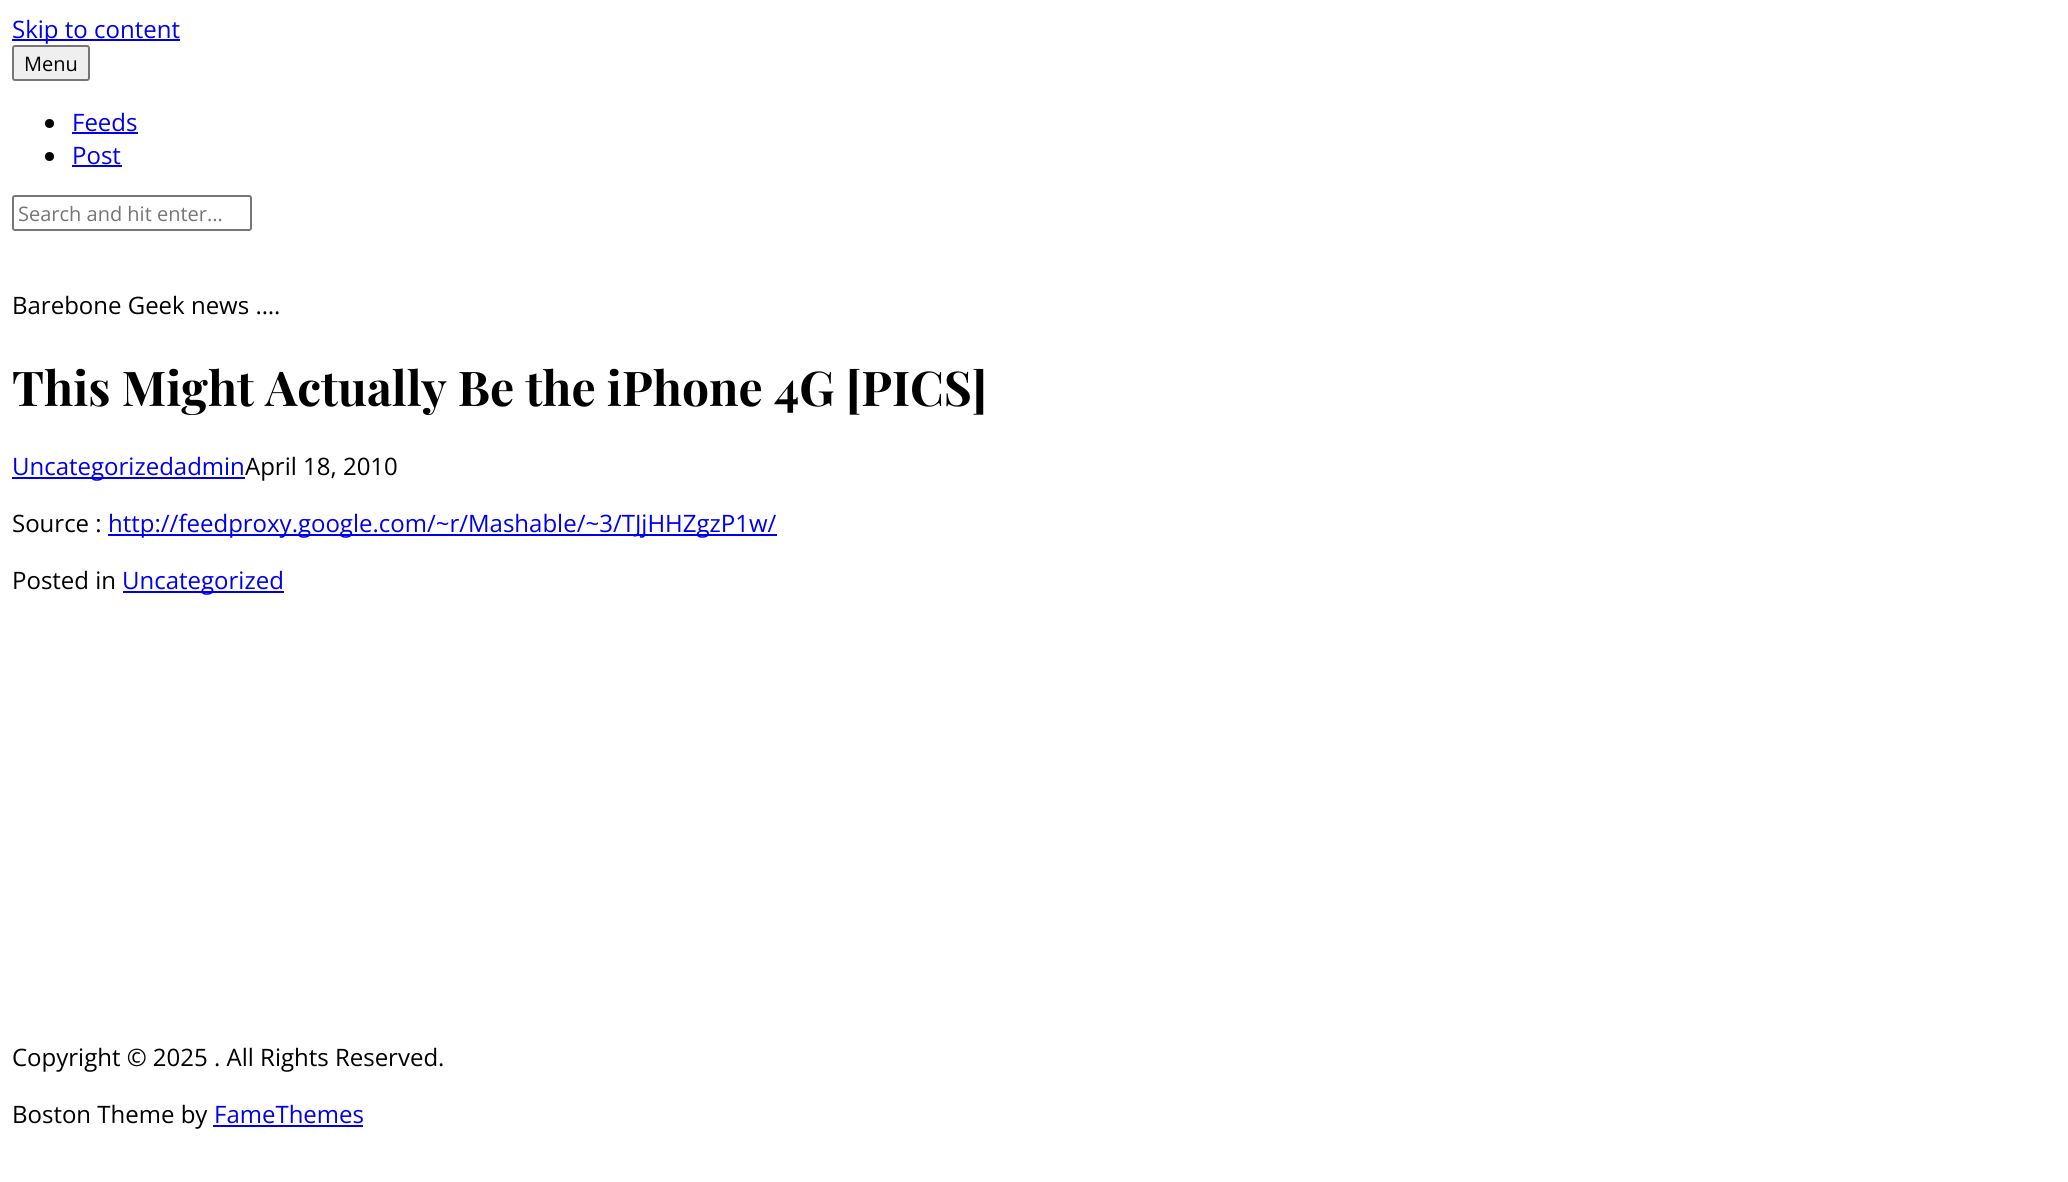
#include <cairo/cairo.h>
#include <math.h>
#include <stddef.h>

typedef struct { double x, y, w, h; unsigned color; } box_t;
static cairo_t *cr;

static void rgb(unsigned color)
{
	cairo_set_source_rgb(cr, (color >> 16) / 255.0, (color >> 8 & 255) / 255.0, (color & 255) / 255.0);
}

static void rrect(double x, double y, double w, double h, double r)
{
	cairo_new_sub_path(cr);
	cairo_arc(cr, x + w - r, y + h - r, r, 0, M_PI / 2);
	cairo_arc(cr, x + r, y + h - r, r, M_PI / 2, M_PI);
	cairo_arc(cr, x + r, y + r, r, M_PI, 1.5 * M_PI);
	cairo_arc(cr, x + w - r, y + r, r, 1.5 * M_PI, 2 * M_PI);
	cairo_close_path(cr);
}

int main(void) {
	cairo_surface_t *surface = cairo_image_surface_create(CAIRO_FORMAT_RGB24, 2068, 1182);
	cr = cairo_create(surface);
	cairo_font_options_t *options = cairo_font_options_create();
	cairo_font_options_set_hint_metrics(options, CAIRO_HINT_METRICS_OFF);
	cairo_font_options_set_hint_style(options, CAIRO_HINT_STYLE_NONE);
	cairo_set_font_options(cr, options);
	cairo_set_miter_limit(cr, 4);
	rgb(0xffffff);
	cairo_paint(cr);
	rgb(0x0000ee);
	cairo_rectangle(cr, 12, 39, 168, 2);
	cairo_fill(cr);
	rgb(0xefefef);
	rrect(13, 46, 76, 34, 2);
	cairo_fill_preserve(cr);
	rgb(0x767676);
	cairo_stroke(cr);
	rgb(0x000000);
	cairo_arc(cr, 49.5, 123.5, 4.5, 0, 2 * M_PI);
	cairo_fill(cr);
	rgb(0x0000ee);
	cairo_rectangle(cr, 72, 132, 66, 2);
	cairo_fill(cr);
	rgb(0x000000);
	cairo_arc(cr, 49.5, 156.5, 4.5, 0, 2 * M_PI);
	cairo_fill(cr);
	rgb(0x0000ee);
	cairo_rectangle(cr, 72, 165, 50, 2);
	cairo_fill(cr);
	rrect(13, 196, 238, 34, 2);
	rgb(0x767676);
	cairo_stroke(cr);
	{
		static const box_t items[] = {
			{12, 477, 233, 2, 0x0000ee},
			{108, 534, 669, 2, 0x0000ee},
			{123, 591, 161, 2, 0x0000ee},
			{213, 1125, 150, 2, 0x0000ee},
		};
		for (size_t i = 0; i < sizeof items / sizeof *items; i++) {
			rgb(items[i].color);
			cairo_rectangle(cr, items[i].x, items[i].y, items[i].w, items[i].h);
			cairo_fill(cr);
		}
	}
	cairo_select_font_face(cr, "Open Sans", CAIRO_FONT_SLANT_NORMAL, CAIRO_FONT_WEIGHT_NORMAL);
	cairo_set_font_size(cr, 24);
	cairo_move_to(cr, 12, 38);
	cairo_show_text(cr, "Skip to content");
	cairo_set_font_size(cr, 20);
	rgb(0x000000);
	cairo_move_to(cr, 24, 71);
	cairo_show_text(cr, "Menu");
	cairo_set_font_size(cr, 24);
	rgb(0x0000ee);
	cairo_move_to(cr, 72, 131);
	cairo_show_text(cr, "Feeds");
	cairo_move_to(cr, 72, 164);
	cairo_show_text(cr, "Post");
	cairo_set_font_size(cr, 20);
	rgb(0x757575);
	cairo_move_to(cr, 18, 221);
	cairo_show_text(cr, "Search and hit enter...");
	cairo_set_font_size(cr, 24);
	rgb(0x000000);
	cairo_move_to(cr, 12, 314);
	cairo_show_text(cr, "Barebone Geek news ….");
	cairo_select_font_face(cr, "Playfair Display", CAIRO_FONT_SLANT_NORMAL, CAIRO_FONT_WEIGHT_BOLD);
	cairo_set_font_size(cr, 48);
	cairo_move_to(cr, 12, 406);
	cairo_show_text(cr, "This Might Actually Be the iPhone 4G [PICS]");
	cairo_select_font_face(cr, "Open Sans", CAIRO_FONT_SLANT_NORMAL, CAIRO_FONT_WEIGHT_NORMAL);
	cairo_set_font_size(cr, 24);
	rgb(0x0000ee);
	cairo_move_to(cr, 12, 475);
	cairo_show_text(cr, "Uncategorizedadmin");
	rgb(0x000000);
	cairo_move_to(cr, 245, 475);
	cairo_show_text(cr, "April 18, 2010");
	cairo_move_to(cr, 12, 532);
	cairo_show_text(cr, "Source :");
	rgb(0x0000ee);
	cairo_move_to(cr, 108, 532);
	cairo_show_text(cr, "http://feedproxy.google.com/~r/Mashable/~3/TJjHHZgzP1w/");
	rgb(0x000000);
	cairo_move_to(cr, 12, 589);
	cairo_show_text(cr, "Posted in");
	rgb(0x0000ee);
	cairo_move_to(cr, 122, 589);
	cairo_show_text(cr, "Uncategorized");
	rgb(0x000000);
	cairo_move_to(cr, 12, 1066);
	cairo_show_text(cr, "Copyright © 2025 . All Rights Reserved.");
	cairo_move_to(cr, 12, 1123);
	cairo_show_text(cr, "Boston Theme by");
	rgb(0x0000ee);
	cairo_move_to(cr, 214, 1123);
	cairo_show_text(cr, "FameThemes");
	cairo_surface_write_to_png(surface, "page.png");
	cairo_font_options_destroy(options);
	cairo_destroy(cr);
	cairo_surface_destroy(surface);
	return 0;
}
